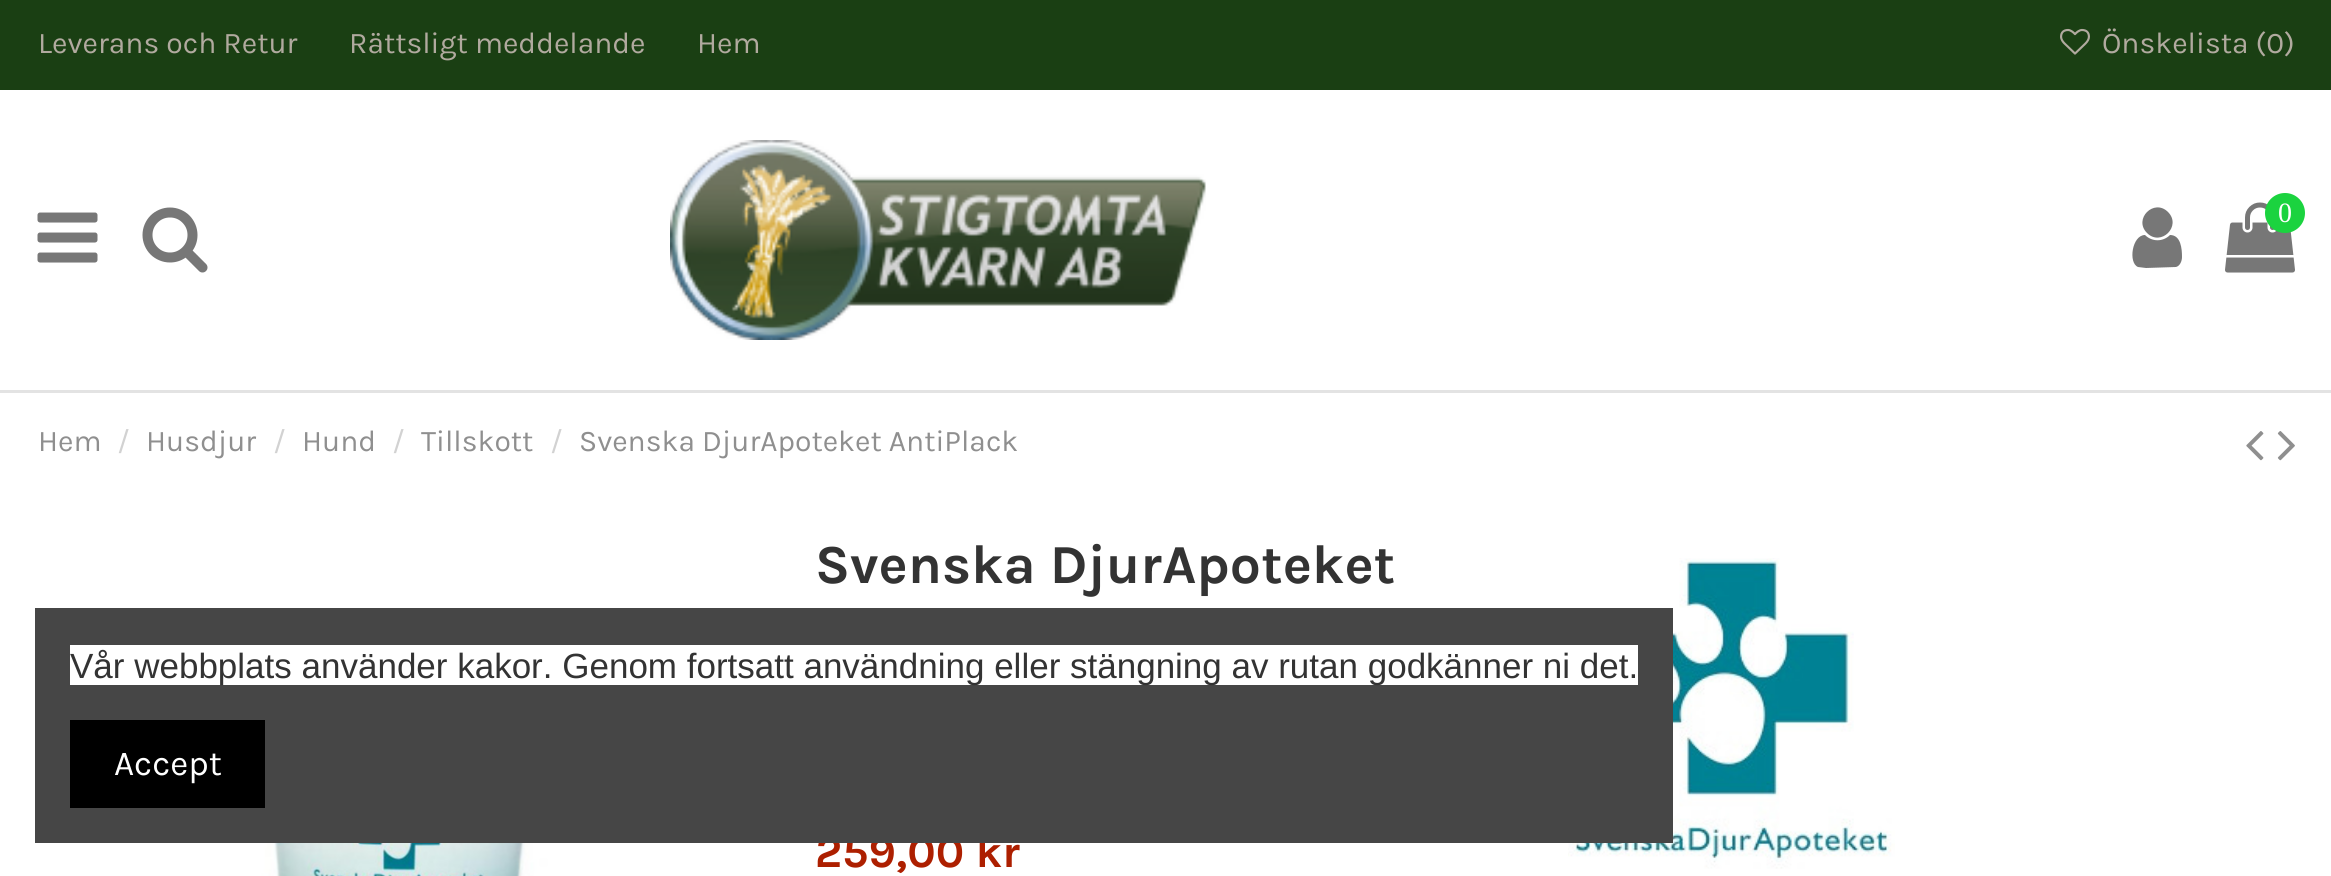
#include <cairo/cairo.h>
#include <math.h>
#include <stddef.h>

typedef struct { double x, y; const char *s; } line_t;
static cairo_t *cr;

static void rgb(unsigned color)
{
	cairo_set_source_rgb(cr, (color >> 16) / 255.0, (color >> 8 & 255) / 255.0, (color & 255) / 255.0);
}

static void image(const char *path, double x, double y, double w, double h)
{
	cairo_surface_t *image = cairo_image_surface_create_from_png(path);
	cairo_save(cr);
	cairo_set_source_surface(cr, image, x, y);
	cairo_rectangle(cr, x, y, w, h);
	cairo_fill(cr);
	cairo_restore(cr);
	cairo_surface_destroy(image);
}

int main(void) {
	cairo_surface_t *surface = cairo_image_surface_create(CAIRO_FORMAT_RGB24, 2331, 876);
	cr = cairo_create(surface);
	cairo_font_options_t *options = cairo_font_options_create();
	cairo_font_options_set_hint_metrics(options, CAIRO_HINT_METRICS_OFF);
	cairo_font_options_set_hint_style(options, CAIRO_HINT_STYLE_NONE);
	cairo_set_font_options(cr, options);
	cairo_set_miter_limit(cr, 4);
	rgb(0xffffff);
	cairo_paint(cr);
	rgb(0x1a3f13);
	cairo_rectangle(cr, 0, 0, 2331, 90);
	cairo_fill(cr);
	image("img/1.png", 2060, 28, 30, 27);
	rgb(0xe3e3e3);
	cairo_rectangle(cr, 0, 390, 2331, 3);
	cairo_fill(cr);
	image("img/2.png", 37, 212, 61, 51);
	image("img/3.png", 142, 207, 66, 66);
	image("img/4.png", 670, 140, 536, 200);
	rgb(0x777777);
	cairo_new_path(cr);
	cairo_move_to(cr, 2182, 257);
	cairo_curve_to(cr, 2182, 261, 2180, 266, 2176, 267);
	cairo_line_to(cr, 2146, 268);
	cairo_line_to(cr, 2138, 267);
	cairo_curve_to(cr, 2128, 263, 2132, 235, 2145, 235);
	cairo_curve_to(cr, 2152, 242, 2163, 242, 2170, 235);
	cairo_curve_to(cr, 2181, 235, 2182, 249, 2182, 257);
	cairo_close_path(cr);
	cairo_move_to(cr, 2168, 212);
	cairo_curve_to(cr, 2182, 226, 2161, 247, 2147, 233);
	cairo_curve_to(cr, 2133, 219, 2154, 198, 2168, 212);
	cairo_close_path(cr);
	cairo_fill(cr);
	image("img/5.png", 2225, 202, 70, 71);
	rgb(0x1bd33f);
	cairo_arc(cr, 2285, 213, 20, 0, 2 * M_PI);
	cairo_fill(cr);
	image("img/6.png", 2246, 431, 18, 30);
	image("img/7.png", 2277, 431, 18, 30);
	image("img/8.png", 242, 843, 311, 33);
	image("img/9.png", 1568, 558, 327, 311);
	cairo_select_font_face(cr, "Karla", CAIRO_FONT_SLANT_NORMAL, CAIRO_FONT_WEIGHT_NORMAL);
	cairo_set_font_size(cr, 30);
	rgb(0xb1aa9f);
	{
		static const line_t items[] = {
			{38, 53, "Leverans och Retur"},
			{349, 53, "Rättsligt meddelande"},
			{697, 53, "Hem"},
			{2102, 53, "Önskelista (0)"},
		};
		for (size_t i = 0; i < sizeof items / sizeof *items; i++) {
			cairo_move_to(cr, items[i].x, items[i].y);
			cairo_show_text(cr, items[i].s);
		}
	}
	cairo_select_font_face(cr, "Liberation Serif", CAIRO_FONT_SLANT_NORMAL, CAIRO_FONT_WEIGHT_NORMAL);
	cairo_set_font_size(cr, 28);
	rgb(0xffffff);
	cairo_move_to(cr, 2278, 222);
	cairo_show_text(cr, "0");
	cairo_select_font_face(cr, "Karla", CAIRO_FONT_SLANT_NORMAL, CAIRO_FONT_WEIGHT_NORMAL);
	cairo_set_font_size(cr, 30);
	rgb(0x8f8f8f);
	cairo_move_to(cr, 38, 451);
	cairo_show_text(cr, "Hem");
	rgb(0xd2d2d2);
	cairo_move_to(cr, 117, 451);
	cairo_show_text(cr, "/");
	rgb(0x8f8f8f);
	cairo_move_to(cr, 146, 451);
	cairo_show_text(cr, "Husdjur");
	rgb(0xd2d2d2);
	cairo_move_to(cr, 273, 451);
	cairo_show_text(cr, "/");
	rgb(0x8f8f8f);
	cairo_move_to(cr, 302, 451);
	cairo_show_text(cr, "Hund");
	rgb(0xd2d2d2);
	cairo_move_to(cr, 392, 451);
	cairo_show_text(cr, "/");
	rgb(0x8f8f8f);
	cairo_move_to(cr, 421, 451);
	cairo_show_text(cr, "Tillskott");
	rgb(0xd2d2d2);
	cairo_move_to(cr, 550, 451);
	cairo_show_text(cr, "/");
	rgb(0x8f8f8f);
	cairo_move_to(cr, 579, 451);
	cairo_show_text(cr, "Svenska DjurApoteket AntiPlack");
	cairo_select_font_face(cr, "Karla", CAIRO_FONT_SLANT_NORMAL, CAIRO_FONT_WEIGHT_BOLD);
	cairo_set_font_size(cr, 55);
	rgb(0x333333);
	cairo_move_to(cr, 815, 583);
	cairo_show_text(cr, "Svenska DjurApoteket");
	cairo_set_font_size(cr, 45);
	rgb(0xad1f00);
	cairo_move_to(cr, 815, 867);
	cairo_show_text(cr, "259,00 kr");
	rgb(0x464646);
	cairo_rectangle(cr, 35, 608, 1638, 235);
	cairo_fill(cr);
	rgb(0xffffff);
	cairo_rectangle(cr, 70, 645, 1568, 40);
	cairo_fill(cr);
	cairo_select_font_face(cr, "Liberation Sans", CAIRO_FONT_SLANT_NORMAL, CAIRO_FONT_WEIGHT_NORMAL);
	cairo_set_font_size(cr, 35);
	rgb(0x333333);
	cairo_move_to(cr, 70, 678);
	cairo_show_text(cr, "Vår webbplats använder kakor. Genom fortsatt användning eller stängning av rutan godkänner ni det.");
	rgb(0x000000);
	cairo_rectangle(cr, 70, 720, 195, 88);
	cairo_fill(cr);
	cairo_select_font_face(cr, "Karla", CAIRO_FONT_SLANT_NORMAL, CAIRO_FONT_WEIGHT_NORMAL);
	rgb(0xffffff);
	cairo_move_to(cr, 114, 775);
	cairo_show_text(cr, "Accept");
	cairo_surface_write_to_png(surface, "page.png");
	cairo_font_options_destroy(options);
	cairo_destroy(cr);
	cairo_surface_destroy(surface);
	return 0;
}
